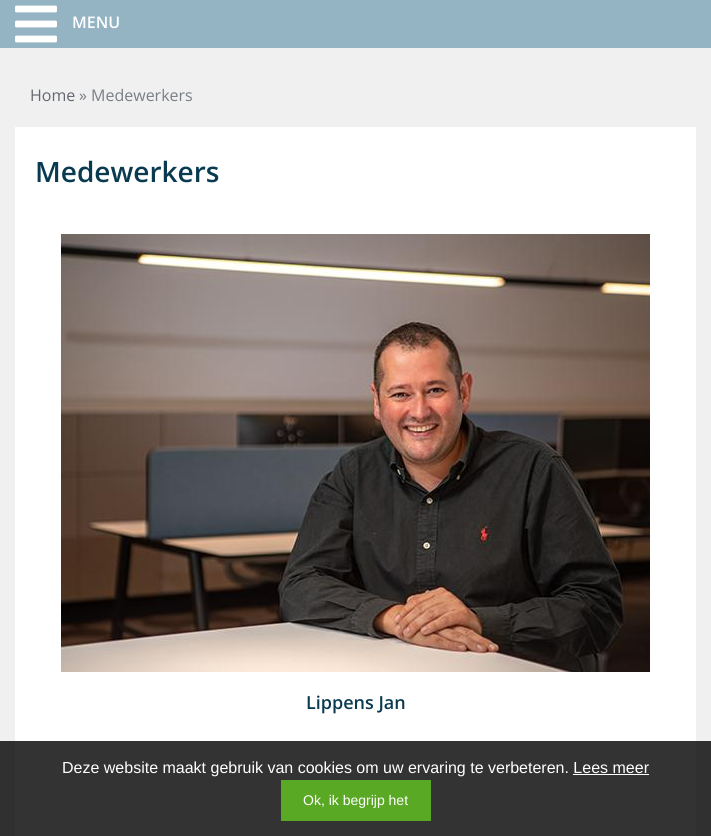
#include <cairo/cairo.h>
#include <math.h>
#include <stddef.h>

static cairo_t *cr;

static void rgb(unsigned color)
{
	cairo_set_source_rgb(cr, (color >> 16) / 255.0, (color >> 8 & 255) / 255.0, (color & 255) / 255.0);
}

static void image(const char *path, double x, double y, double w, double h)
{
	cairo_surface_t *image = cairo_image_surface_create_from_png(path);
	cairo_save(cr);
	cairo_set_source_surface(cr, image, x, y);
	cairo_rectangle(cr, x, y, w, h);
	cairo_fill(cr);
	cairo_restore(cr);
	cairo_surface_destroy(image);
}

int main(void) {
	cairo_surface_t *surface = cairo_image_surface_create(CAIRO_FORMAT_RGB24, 711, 836);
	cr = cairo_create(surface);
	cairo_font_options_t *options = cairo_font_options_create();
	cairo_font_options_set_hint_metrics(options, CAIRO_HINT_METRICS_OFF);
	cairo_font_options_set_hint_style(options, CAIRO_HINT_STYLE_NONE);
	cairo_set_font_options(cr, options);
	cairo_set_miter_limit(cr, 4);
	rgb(0xf0f0f0);
	cairo_paint(cr);
	rgb(0x94b4c4);
	cairo_rectangle(cr, 0, 0, 711, 48);
	cairo_fill(cr);
	image("img/1.png", 15, 5, 42, 38);
	rgb(0xffffff);
	cairo_rectangle(cr, 15, 127, 681, 709);
	cairo_fill(cr);
	image("img/2.png", 61, 234, 589, 438);
	cairo_set_source_rgba(cr, 0, 0, 0, 0.8);
	cairo_rectangle(cr, 0, 741, 711, 95);
	cairo_fill(cr);
	rgb(0xffffff);
	cairo_rectangle(cr, 573, 774, 76, 1);
	cairo_fill(cr);
	rgb(0x59a924);
	cairo_rectangle(cr, 281, 780, 150, 41);
	cairo_fill(cr);
	cairo_select_font_face(cr, "Open Sans SemiBold", CAIRO_FONT_SLANT_NORMAL, CAIRO_FONT_WEIGHT_NORMAL);
	cairo_set_font_size(cr, 16);
	rgb(0xffffff);
	cairo_move_to(cr, 72, 28);
	cairo_show_text(cr, "MENU");
	cairo_select_font_face(cr, "Open Sans", CAIRO_FONT_SLANT_NORMAL, CAIRO_FONT_WEIGHT_NORMAL);
	rgb(0x63676e);
	cairo_move_to(cr, 30, 101);
	cairo_show_text(cr, "Home");
	rgb(0x797e86);
	cairo_move_to(cr, 79, 101);
	cairo_show_text(cr, "» Medewerkers");
	cairo_select_font_face(cr, "Open Sans SemiBold", CAIRO_FONT_SLANT_NORMAL, CAIRO_FONT_WEIGHT_NORMAL);
	cairo_set_font_size(cr, 28);
	rgb(0x093a50);
	cairo_move_to(cr, 35, 182);
	cairo_show_text(cr, "Medewerkers");
	cairo_set_font_size(cr, 18);
	cairo_move_to(cr, 306, 709);
	cairo_show_text(cr, "Lippens Jan");
	cairo_select_font_face(cr, "Liberation Sans", CAIRO_FONT_SLANT_NORMAL, CAIRO_FONT_WEIGHT_NORMAL);
	cairo_set_font_size(cr, 16);
	rgb(0xffffff);
	cairo_move_to(cr, 62, 773);
	cairo_show_text(cr, "Deze website maakt gebruik van cookies om uw ervaring te verbeteren. Lees meer");
	cairo_set_font_size(cr, 14);
	cairo_move_to(cr, 303, 805);
	cairo_show_text(cr, "Ok, ik begrijp het");
	cairo_surface_write_to_png(surface, "page.png");
	cairo_font_options_destroy(options);
	cairo_destroy(cr);
	cairo_surface_destroy(surface);
	return 0;
}
